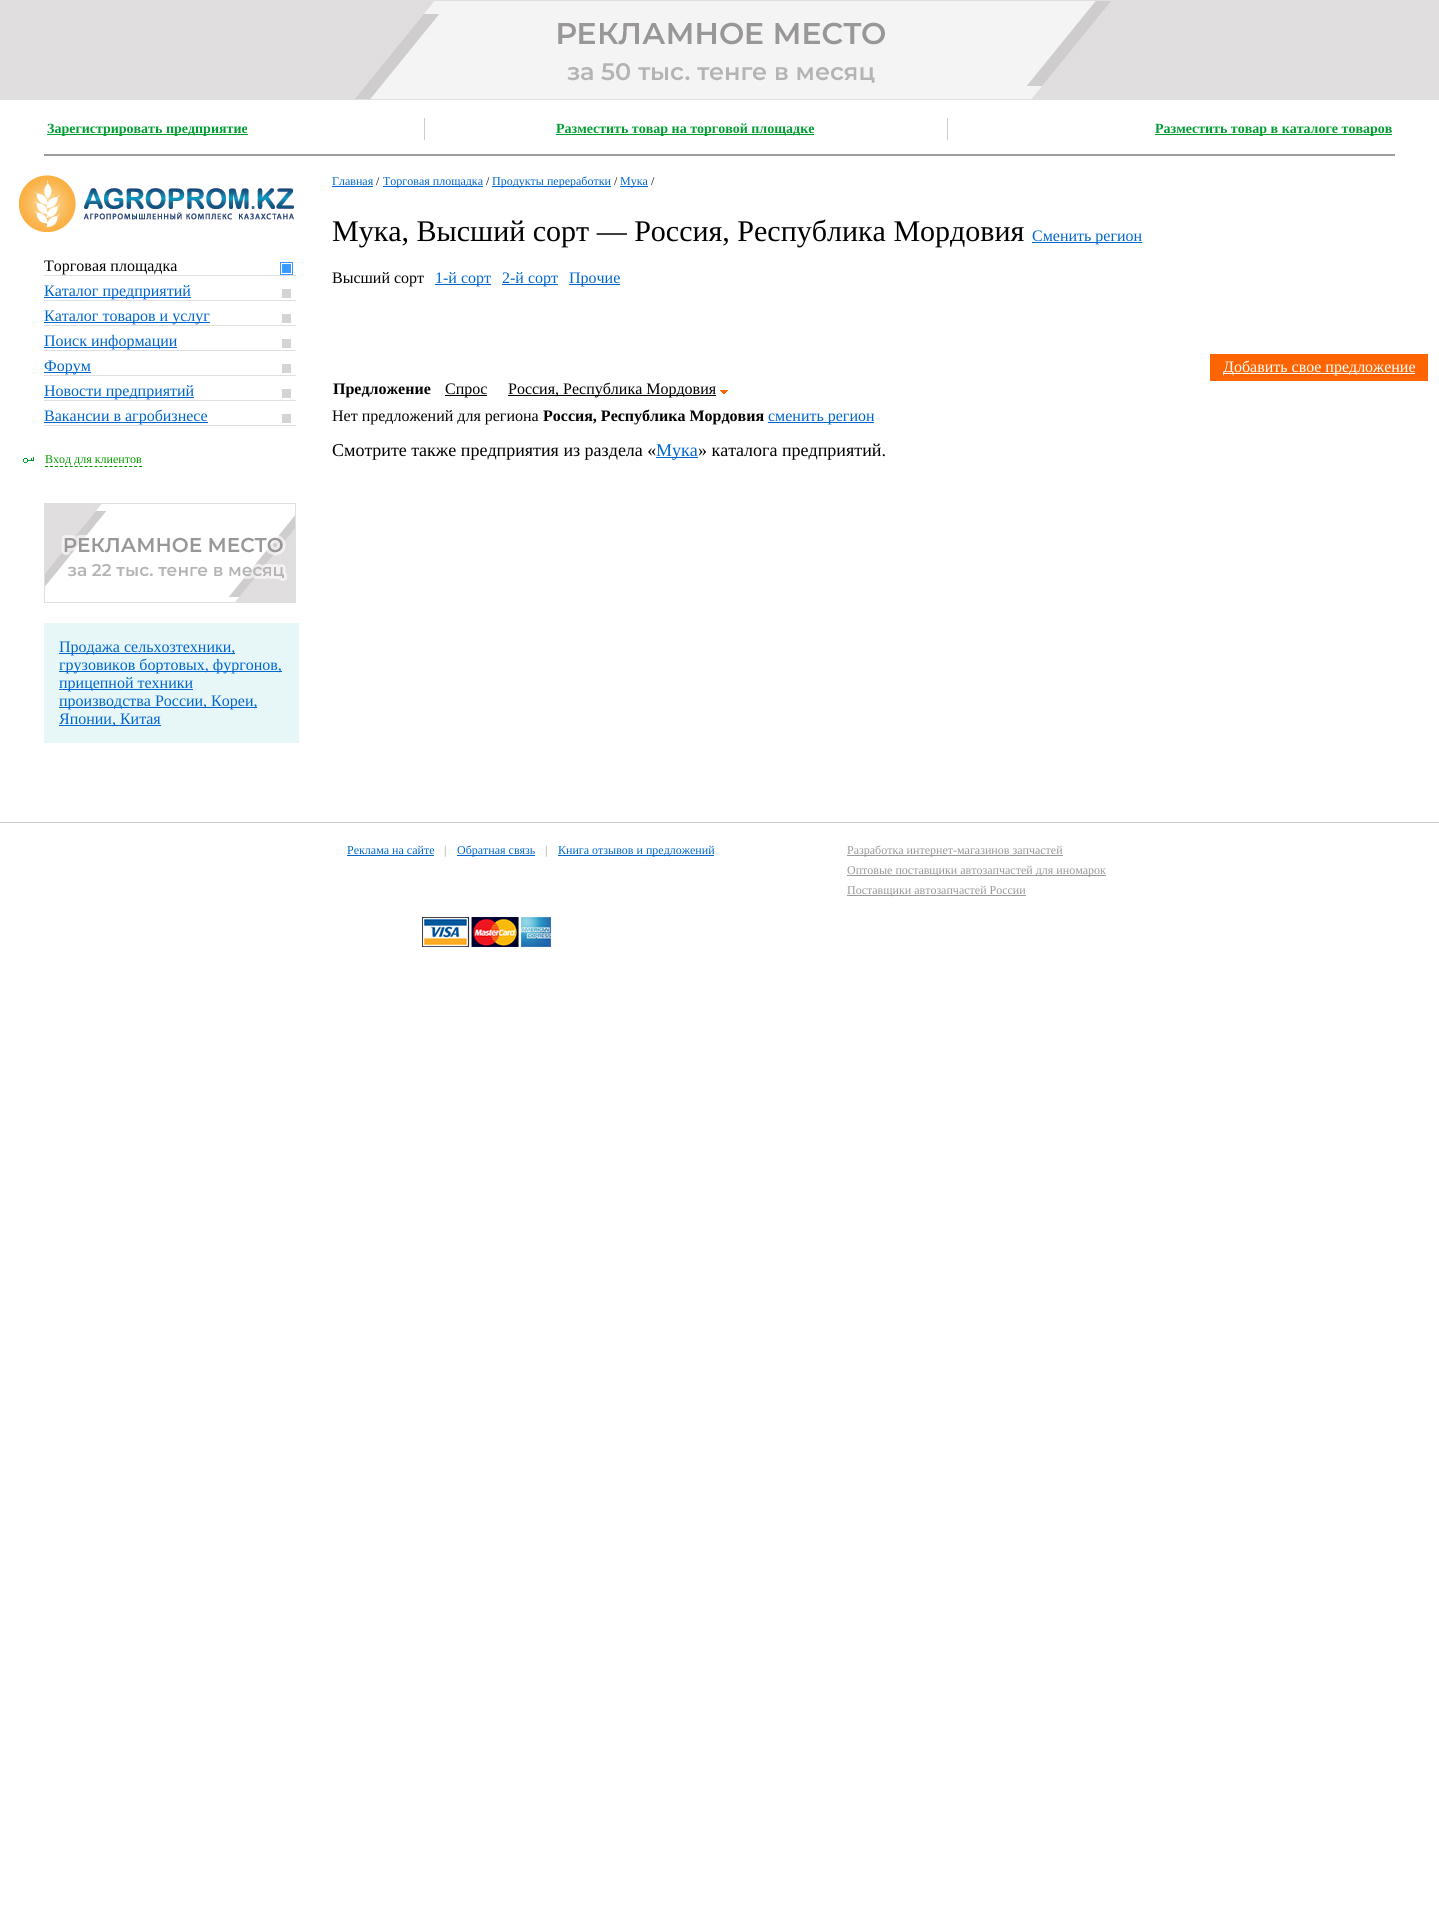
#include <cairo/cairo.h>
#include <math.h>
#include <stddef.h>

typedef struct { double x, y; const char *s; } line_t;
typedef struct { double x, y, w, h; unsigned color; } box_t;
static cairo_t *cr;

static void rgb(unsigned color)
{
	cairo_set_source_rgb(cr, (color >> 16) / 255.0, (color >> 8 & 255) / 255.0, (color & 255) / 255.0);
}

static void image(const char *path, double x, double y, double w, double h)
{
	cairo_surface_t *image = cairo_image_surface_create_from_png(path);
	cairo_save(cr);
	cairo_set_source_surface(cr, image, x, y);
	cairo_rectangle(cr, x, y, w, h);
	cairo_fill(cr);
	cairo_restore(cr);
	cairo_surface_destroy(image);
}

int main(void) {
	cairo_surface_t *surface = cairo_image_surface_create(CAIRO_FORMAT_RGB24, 1439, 1912);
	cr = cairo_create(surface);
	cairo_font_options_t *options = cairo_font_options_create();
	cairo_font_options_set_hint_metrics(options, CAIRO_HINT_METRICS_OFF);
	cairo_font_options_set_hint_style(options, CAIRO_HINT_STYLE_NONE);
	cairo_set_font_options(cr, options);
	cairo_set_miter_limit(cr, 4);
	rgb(0xffffff);
	cairo_paint(cr);
	rgb(0xe0dede);
	cairo_rectangle(cr, 0, 0, 1439, 100);
	cairo_fill(cr);
	image("img/1.png", 355, 1, 756, 98);
	{
		static const box_t items[] = {
			{47, 134, 201, 1, 0x009e32},
			{424, 118, 1, 22, 0xcccccc},
			{556, 134, 258, 1, 0x009e32},
			{947, 118, 1, 22, 0xcccccc},
			{1155, 134, 237, 1, 0x009e32},
			{44, 154, 1351, 2, 0x9d9d9d},
		};
		for (size_t i = 0; i < sizeof items / sizeof *items; i++) {
			rgb(items[i].color);
			cairo_rectangle(cr, items[i].x, items[i].y, items[i].w, items[i].h);
			cairo_fill(cr);
		}
	}
	image("img/2.png", 19, 175, 275, 57);
	rgb(0xe0e0e0);
	cairo_rectangle(cr, 44, 275, 252, 1);
	cairo_fill(cr);
	image("img/3.png", 280, 262, 13, 13);
	{
		static const box_t items[] = {
			{44, 300, 252, 1, 0xe0e0e0},
			{44, 297, 147, 1, 0x0065cd},
			{282, 289, 9, 9, 0xd5d3d4},
			{44, 325, 252, 1, 0xe0e0e0},
			{44, 322, 166, 1, 0x0065cd},
			{282, 314, 9, 9, 0xd5d3d4},
			{44, 350, 252, 1, 0xe0e0e0},
			{44, 347, 133, 1, 0x0065cd},
			{282, 339, 9, 9, 0xd5d3d4},
			{44, 375, 252, 1, 0xe0e0e0},
			{44, 372, 47, 1, 0x0065cd},
			{282, 364, 9, 9, 0xd5d3d4},
			{44, 400, 252, 1, 0xe0e0e0},
			{44, 397, 150, 1, 0x0065cd},
			{282, 389, 9, 9, 0xd5d3d4},
			{44, 425, 252, 1, 0xe0e0e0},
			{44, 422, 164, 1, 0x0065cd},
			{282, 414, 9, 9, 0xd5d3d4},
		};
		for (size_t i = 0; i < sizeof items / sizeof *items; i++) {
			rgb(items[i].color);
			cairo_rectangle(cr, items[i].x, items[i].y, items[i].w, items[i].h);
			cairo_fill(cr);
		}
	}
	image("img/4.png", 20, 455, 16, 10);
	cairo_new_path(cr);
	cairo_move_to(cr, 45, 466.5);
	cairo_line_to(cr, 142, 466.5);
	rgb(0x039800);
	cairo_set_line_width(cr, 1);
	cairo_set_dash(cr, (double[]){3, 1.95}, 2, 0);
	cairo_stroke(cr);
	image("img/5.png", 44, 503, 252, 100);
	{
		static const box_t items[] = {
			{44, 623, 255, 120, 0xe7f7f8},
			{59, 653, 176, 1, 0x0066cc},
			{59, 671, 223, 1, 0x0066cc},
			{59, 689, 134, 1, 0x0066cc},
			{59, 707, 198, 1, 0x0066cc},
			{59, 725, 102, 1, 0x0066cc},
			{332, 186, 41, 1, 0x0066cc},
			{383, 186, 100, 1, 0x0066cc},
			{492, 186, 119, 1, 0x0066cc},
			{620, 186, 28, 1, 0x0066cc},
			{1032, 242, 110, 1, 0x0066cc},
			{435, 284, 56, 1, 0x0066cc},
			{502, 284, 56, 1, 0x0066cc},
			{569, 284, 51, 1, 0x0066cc},
			{1210, 354, 218, 27, 0xfe6402},
			{1223, 373, 192, 1, 0xffffff},
			{445, 395, 42, 1, 0x000000},
		};
		for (size_t i = 0; i < sizeof items / sizeof *items; i++) {
			rgb(items[i].color);
			cairo_rectangle(cr, items[i].x, items[i].y, items[i].w, items[i].h);
			cairo_fill(cr);
		}
	}
	image("img/6.png", 720, 390, 8, 4);
	{
		static const box_t items[] = {
			{508, 395, 208, 1, 0x000000},
			{768, 422, 106, 1, 0x0066cc},
			{656, 457, 42, 1, 0x0066cc},
			{0, 822, 1439, 1, 0xcccccc},
			{347, 855, 87, 1, 0x0066cc},
			{457, 855, 78, 1, 0x0066cc},
			{558, 855, 156, 1, 0x0066cc},
			{847, 855, 216, 1, 0x999999},
			{847, 875, 259, 1, 0x999999},
			{847, 895, 179, 1, 0x999999},
		};
		for (size_t i = 0; i < sizeof items / sizeof *items; i++) {
			rgb(items[i].color);
			cairo_rectangle(cr, items[i].x, items[i].y, items[i].w, items[i].h);
			cairo_fill(cr);
		}
	}
	image("img/7.png", 422, 917, 129, 30);
	cairo_select_font_face(cr, "Liberation Serif", CAIRO_FONT_SLANT_NORMAL, CAIRO_FONT_WEIGHT_BOLD);
	cairo_set_font_size(cr, 14);
	rgb(0x009e32);
	{
		static const line_t items[] = {
			{47, 133, "Зарегистрировать предприятие"},
			{556, 133, "Разместить товар на торговой площадке"},
			{1155, 133, "Разместить товар в каталоге товаров"},
		};
		for (size_t i = 0; i < sizeof items / sizeof *items; i++) {
			cairo_move_to(cr, items[i].x, items[i].y);
			cairo_show_text(cr, items[i].s);
		}
	}
	cairo_select_font_face(cr, "Liberation Serif", CAIRO_FONT_SLANT_NORMAL, CAIRO_FONT_WEIGHT_NORMAL);
	cairo_set_font_size(cr, 16);
	rgb(0x000000);
	cairo_move_to(cr, 44, 271);
	cairo_show_text(cr, "Торговая площадка");
	rgb(0x0066cc);
	{
		static const line_t items[] = {
			{44, 296, "Каталог предприятий"},
			{44, 321, "Каталог товаров и услуг"},
			{44, 346, "Поиск информации"},
			{44, 371, "Форум"},
			{44, 396, "Новости предприятий"},
			{44, 421, "Вакансии в агробизнесе"},
		};
		for (size_t i = 0; i < sizeof items / sizeof *items; i++) {
			cairo_move_to(cr, items[i].x, items[i].y);
			cairo_show_text(cr, items[i].s);
		}
	}
	cairo_set_font_size(cr, 12);
	rgb(0x039800);
	cairo_move_to(cr, 45, 463);
	cairo_show_text(cr, "Вход для клиентов");
	cairo_set_font_size(cr, 16);
	rgb(0x0066cc);
	{
		static const line_t items[] = {
			{59, 652, "Продажа сельхозтехники,"},
			{59, 670, "грузовиков бортовых, фургонов,"},
			{59, 688, "прицепной техники"},
			{59, 706, "производства России, Кореи,"},
			{59, 724, "Японии, Китая"},
		};
		for (size_t i = 0; i < sizeof items / sizeof *items; i++) {
			cairo_move_to(cr, items[i].x, items[i].y);
			cairo_show_text(cr, items[i].s);
		}
	}
	cairo_set_font_size(cr, 12);
	cairo_move_to(cr, 332, 185);
	cairo_show_text(cr, "Главная");
	rgb(0x000000);
	cairo_move_to(cr, 376, 185);
	cairo_show_text(cr, "/");
	rgb(0x0066cc);
	cairo_move_to(cr, 383, 185);
	cairo_show_text(cr, "Торговая площадка");
	rgb(0x000000);
	cairo_move_to(cr, 486, 185);
	cairo_show_text(cr, "/");
	rgb(0x0066cc);
	cairo_move_to(cr, 492, 185);
	cairo_show_text(cr, "Продукты переработки");
	rgb(0x000000);
	cairo_move_to(cr, 614, 185);
	cairo_show_text(cr, "/");
	rgb(0x0066cc);
	cairo_move_to(cr, 620, 185);
	cairo_show_text(cr, "Мука");
	rgb(0x000000);
	cairo_move_to(cr, 651, 185);
	cairo_show_text(cr, "/");
	cairo_set_font_size(cr, 30);
	cairo_move_to(cr, 332, 241);
	cairo_show_text(cr, "Мука, Высший сорт — Россия, Республика Мордовия");
	cairo_set_font_size(cr, 16);
	rgb(0x0066cc);
	cairo_move_to(cr, 1032, 241);
	cairo_show_text(cr, "Сменить регион");
	rgb(0x000000);
	cairo_move_to(cr, 332, 283);
	cairo_show_text(cr, "Высший сорт");
	rgb(0x0066cc);
	{
		static const line_t items[] = {
			{435, 283, "1-й сорт"},
			{502, 283, "2-й сорт"},
			{569, 283, "Прочие"},
		};
		for (size_t i = 0; i < sizeof items / sizeof *items; i++) {
			cairo_move_to(cr, items[i].x, items[i].y);
			cairo_show_text(cr, items[i].s);
		}
	}
	rgb(0xffffff);
	cairo_move_to(cr, 1223, 372);
	cairo_show_text(cr, "Добавить свое предложение");
	cairo_select_font_face(cr, "Liberation Serif", CAIRO_FONT_SLANT_NORMAL, CAIRO_FONT_WEIGHT_BOLD);
	rgb(0x000000);
	cairo_move_to(cr, 333, 394);
	cairo_show_text(cr, "Предложение");
	cairo_select_font_face(cr, "Liberation Serif", CAIRO_FONT_SLANT_NORMAL, CAIRO_FONT_WEIGHT_NORMAL);
	{
		static const line_t items[] = {
			{445, 394, "Спрос"},
			{508, 394, "Россия, Республика Мордовия"},
			{332, 421, "Нет предложений для региона"},
		};
		for (size_t i = 0; i < sizeof items / sizeof *items; i++) {
			cairo_move_to(cr, items[i].x, items[i].y);
			cairo_show_text(cr, items[i].s);
		}
	}
	cairo_select_font_face(cr, "Liberation Serif", CAIRO_FONT_SLANT_NORMAL, CAIRO_FONT_WEIGHT_BOLD);
	cairo_move_to(cr, 543, 421);
	cairo_show_text(cr, "Россия, Республика Мордовия");
	cairo_select_font_face(cr, "Liberation Serif", CAIRO_FONT_SLANT_NORMAL, CAIRO_FONT_WEIGHT_NORMAL);
	rgb(0x0066cc);
	cairo_move_to(cr, 768, 421);
	cairo_show_text(cr, "cменить регион");
	cairo_set_font_size(cr, 18);
	rgb(0x000000);
	cairo_move_to(cr, 332, 456);
	cairo_show_text(cr, "Смотрите также предприятия из раздела «");
	rgb(0x0066cc);
	cairo_move_to(cr, 656, 456);
	cairo_show_text(cr, "Мука");
	rgb(0x000000);
	cairo_move_to(cr, 698, 456);
	cairo_show_text(cr, "» каталога предприятий.");
	cairo_set_font_size(cr, 12);
	rgb(0x0066cc);
	cairo_move_to(cr, 347, 854);
	cairo_show_text(cr, "Реклама на сайте");
	rgb(0x999999);
	cairo_move_to(cr, 444, 854);
	cairo_show_text(cr, "|");
	rgb(0x0066cc);
	cairo_move_to(cr, 457, 854);
	cairo_show_text(cr, "Обратная связь");
	rgb(0x999999);
	cairo_move_to(cr, 545, 854);
	cairo_show_text(cr, "|");
	rgb(0x0066cc);
	cairo_move_to(cr, 558, 854);
	cairo_show_text(cr, "Книга отзывов и предложений");
	rgb(0x999999);
	{
		static const line_t items[] = {
			{847, 854, "Разработка интернет-магазинов запчастей"},
			{847, 874, "Оптовые поставщики автозапчастей для иномарок"},
			{847, 894, "Поставщики автозапчастей России"},
		};
		for (size_t i = 0; i < sizeof items / sizeof *items; i++) {
			cairo_move_to(cr, items[i].x, items[i].y);
			cairo_show_text(cr, items[i].s);
		}
	}
	cairo_surface_write_to_png(surface, "page.png");
	cairo_font_options_destroy(options);
	cairo_destroy(cr);
	cairo_surface_destroy(surface);
	return 0;
}
